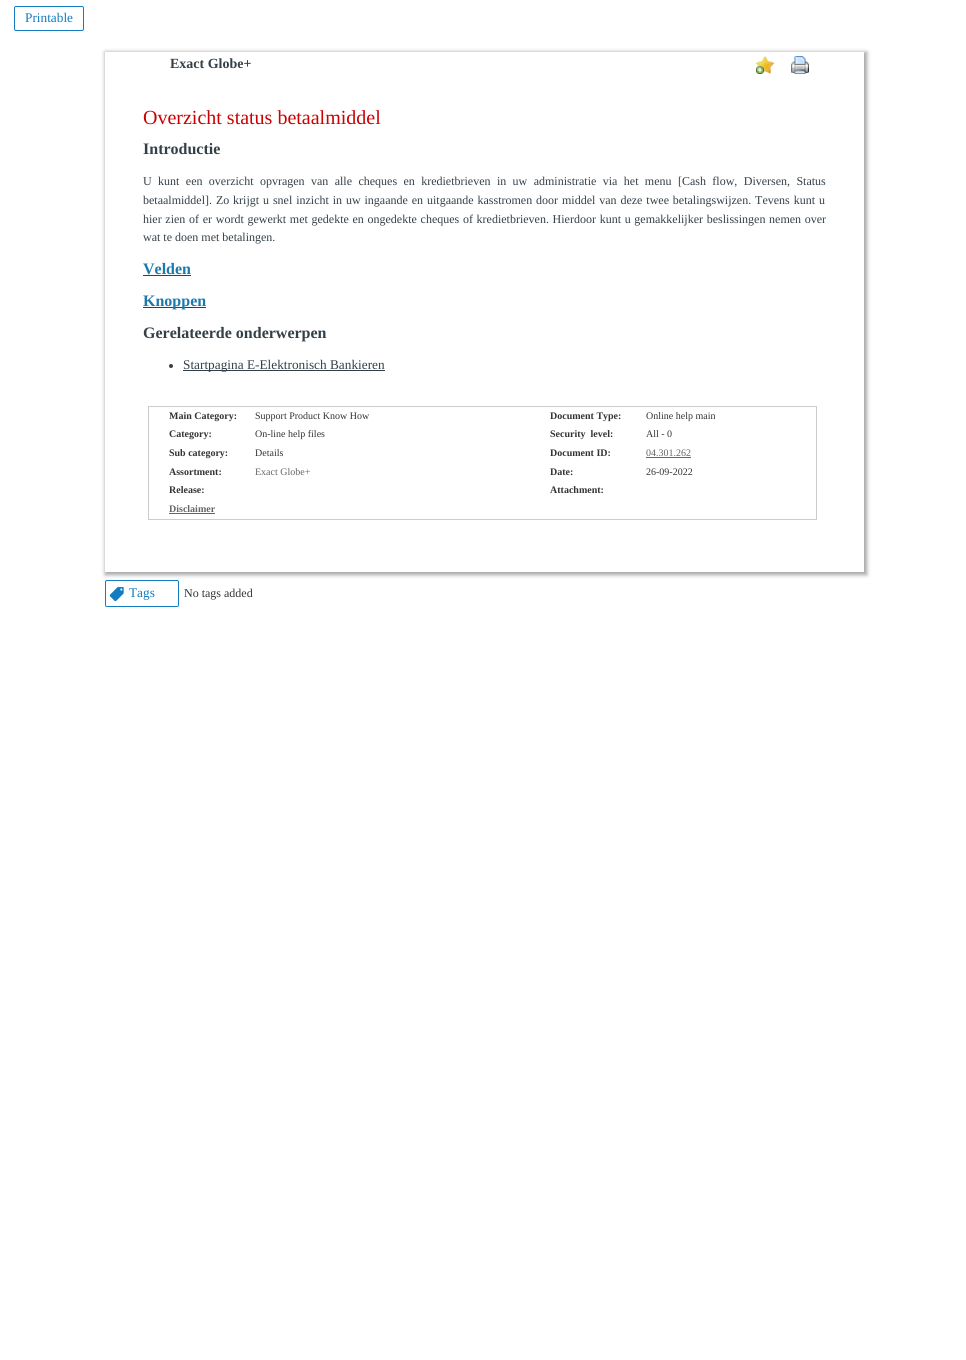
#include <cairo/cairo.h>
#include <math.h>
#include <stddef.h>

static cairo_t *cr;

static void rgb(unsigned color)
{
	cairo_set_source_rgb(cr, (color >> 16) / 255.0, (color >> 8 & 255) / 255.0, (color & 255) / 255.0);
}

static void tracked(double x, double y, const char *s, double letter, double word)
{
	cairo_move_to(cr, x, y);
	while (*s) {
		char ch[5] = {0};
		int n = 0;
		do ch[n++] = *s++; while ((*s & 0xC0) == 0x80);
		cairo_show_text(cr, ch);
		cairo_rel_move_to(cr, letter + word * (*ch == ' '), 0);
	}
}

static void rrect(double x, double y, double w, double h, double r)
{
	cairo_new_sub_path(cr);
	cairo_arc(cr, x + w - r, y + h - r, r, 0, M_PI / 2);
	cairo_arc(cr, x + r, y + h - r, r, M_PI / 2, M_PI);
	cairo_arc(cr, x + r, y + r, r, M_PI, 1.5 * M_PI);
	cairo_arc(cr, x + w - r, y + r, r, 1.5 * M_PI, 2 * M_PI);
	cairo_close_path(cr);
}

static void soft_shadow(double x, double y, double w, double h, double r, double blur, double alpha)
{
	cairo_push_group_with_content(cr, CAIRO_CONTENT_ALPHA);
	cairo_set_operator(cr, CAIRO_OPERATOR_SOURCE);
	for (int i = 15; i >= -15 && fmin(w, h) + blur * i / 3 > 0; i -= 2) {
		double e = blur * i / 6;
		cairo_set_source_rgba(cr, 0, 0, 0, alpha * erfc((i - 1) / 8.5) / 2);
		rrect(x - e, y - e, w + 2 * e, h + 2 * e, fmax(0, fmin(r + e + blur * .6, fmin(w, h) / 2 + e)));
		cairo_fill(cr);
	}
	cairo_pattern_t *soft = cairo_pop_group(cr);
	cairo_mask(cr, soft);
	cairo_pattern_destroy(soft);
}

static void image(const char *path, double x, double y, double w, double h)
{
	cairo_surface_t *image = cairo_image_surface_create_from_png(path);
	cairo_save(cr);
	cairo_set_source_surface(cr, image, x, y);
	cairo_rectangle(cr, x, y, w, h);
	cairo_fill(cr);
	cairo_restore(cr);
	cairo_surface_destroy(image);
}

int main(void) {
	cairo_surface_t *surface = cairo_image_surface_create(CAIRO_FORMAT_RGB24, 966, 1360);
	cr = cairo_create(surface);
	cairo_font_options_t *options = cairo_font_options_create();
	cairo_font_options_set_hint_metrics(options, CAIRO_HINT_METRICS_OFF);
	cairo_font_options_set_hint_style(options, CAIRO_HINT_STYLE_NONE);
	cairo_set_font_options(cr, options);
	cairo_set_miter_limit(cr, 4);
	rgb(0xffffff);
	cairo_paint(cr);
	rrect(14.5, 6.5, 69, 24, 1.5);
	rgb(0x137bc0);
	cairo_set_line_width(cr, 1);
	cairo_stroke(cr);
	cairo_save(cr);
	cairo_set_fill_rule(cr, CAIRO_FILL_RULE_EVEN_ODD);
	cairo_new_path(cr);
	cairo_move_to(cr, 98, 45);
	cairo_line_to(cr, 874, 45);
	cairo_line_to(cr, 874, 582);
	cairo_line_to(cr, 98, 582);
	cairo_close_path(cr);
	cairo_move_to(cr, 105, 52);
	cairo_line_to(cr, 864, 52);
	cairo_line_to(cr, 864, 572);
	cairo_line_to(cr, 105, 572);
	cairo_close_path(cr);
	cairo_clip(cr);
	rgb(0x000000);
	soft_shadow(105, 52, 762, 523, 0, 2, 0.35);
	cairo_restore(cr);
	image("img/1.png", 756, 56, 18, 18);
	image("img/2.png", 791, 56, 18, 18);
	rgb(0x344047);
	cairo_rectangle(cr, 143, 275, 48, 1);
	cairo_fill(cr);
	cairo_rectangle(cr, 143, 307, 63, 1);
	cairo_fill(cr);
	cairo_arc(cr, 171, 366, 2, 0, 2 * M_PI);
	cairo_fill(cr);
	cairo_rectangle(cr, 183, 370, 202, 1);
	cairo_fill(cr);
	cairo_rectangle(cr, 148.5, 406.5, 668, 113);
	rgb(0xcccccc);
	cairo_stroke(cr);
	rgb(0x666666);
	cairo_rectangle(cr, 646, 457, 45, 1);
	cairo_fill(cr);
	cairo_rectangle(cr, 169, 513, 46, 1);
	cairo_fill(cr);
	rrect(105.5, 580.5, 73, 26, 1.5);
	rgb(0x137bc0);
	cairo_stroke(cr);
	image("img/3.png", 109, 587, 15, 15);
	cairo_select_font_face(cr, "Liberation Serif", CAIRO_FONT_SLANT_NORMAL, CAIRO_FONT_WEIGHT_NORMAL);
	cairo_set_font_size(cr, 13.3);
	cairo_move_to(cr, 25, 22);
	cairo_show_text(cr, "Printable");
	cairo_select_font_face(cr, "Liberation Serif", CAIRO_FONT_SLANT_NORMAL, CAIRO_FONT_WEIGHT_BOLD);
	cairo_set_font_size(cr, 14);
	rgb(0x344047);
	cairo_move_to(cr, 170, 68);
	cairo_show_text(cr, "Exact Globe+");
	cairo_select_font_face(cr, "Liberation Serif", CAIRO_FONT_SLANT_NORMAL, CAIRO_FONT_WEIGHT_NORMAL);
	cairo_set_font_size(cr, 20);
	rgb(0xcc0000);
	cairo_move_to(cr, 143, 124);
	cairo_show_text(cr, "Overzicht status betaalmiddel");
	cairo_select_font_face(cr, "Liberation Serif", CAIRO_FONT_SLANT_NORMAL, CAIRO_FONT_WEIGHT_BOLD);
	cairo_set_font_size(cr, 16);
	rgb(0x344047);
	cairo_move_to(cr, 143, 154);
	cairo_show_text(cr, "Introductie");
	cairo_select_font_face(cr, "Liberation Serif", CAIRO_FONT_SLANT_NORMAL, CAIRO_FONT_WEIGHT_NORMAL);
	cairo_set_font_size(cr, 12);
	tracked(143, 185, "U kunt een overzicht opvragen van alle cheques en kredietbrieven in uw administratie via het menu [Cash flow, Diversen, Status", 0, 3.4);
	tracked(143, 204, "betaalmiddel]. Zo krijgt u snel inzicht in uw ingaande en uitgaande kasstromen door middel van deze twee betalingswijzen. Tevens kunt u", 0, 0.9);
	tracked(143, 223, "hier zien of er wordt gewerkt met gedekte en ongedekte cheques of kredietbrieven. Hierdoor kunt u gemakkelijker beslissingen nemen over", 0, 0.7);
	cairo_move_to(cr, 143, 241);
	cairo_show_text(cr, "wat te doen met betalingen.");
	cairo_select_font_face(cr, "Liberation Serif", CAIRO_FONT_SLANT_NORMAL, CAIRO_FONT_WEIGHT_BOLD);
	cairo_set_font_size(cr, 16);
	rgb(0x1a7aad);
	cairo_move_to(cr, 143, 274);
	cairo_show_text(cr, "Velden");
	cairo_move_to(cr, 143, 306);
	cairo_show_text(cr, "Knoppen");
	rgb(0x344047);
	cairo_move_to(cr, 143, 338);
	cairo_show_text(cr, "Gerelateerde onderwerpen");
	cairo_select_font_face(cr, "Liberation Serif", CAIRO_FONT_SLANT_NORMAL, CAIRO_FONT_WEIGHT_NORMAL);
	cairo_set_font_size(cr, 13.3);
	cairo_move_to(cr, 183, 369);
	cairo_show_text(cr, "Startpagina E-Elektronisch Bankieren");
	cairo_select_font_face(cr, "Liberation Serif", CAIRO_FONT_SLANT_NORMAL, CAIRO_FONT_WEIGHT_BOLD);
	cairo_set_font_size(cr, 10);
	rgb(0x333333);
	cairo_move_to(cr, 169, 419);
	cairo_show_text(cr, "Main Category:");
	cairo_select_font_face(cr, "Liberation Serif", CAIRO_FONT_SLANT_NORMAL, CAIRO_FONT_WEIGHT_NORMAL);
	cairo_move_to(cr, 255, 419);
	cairo_show_text(cr, "Support Product Know How");
	cairo_select_font_face(cr, "Liberation Serif", CAIRO_FONT_SLANT_NORMAL, CAIRO_FONT_WEIGHT_BOLD);
	cairo_move_to(cr, 550, 419);
	cairo_show_text(cr, "Document Type:");
	cairo_select_font_face(cr, "Liberation Serif", CAIRO_FONT_SLANT_NORMAL, CAIRO_FONT_WEIGHT_NORMAL);
	cairo_move_to(cr, 646, 419);
	cairo_show_text(cr, "Online help main");
	cairo_select_font_face(cr, "Liberation Serif", CAIRO_FONT_SLANT_NORMAL, CAIRO_FONT_WEIGHT_BOLD);
	cairo_move_to(cr, 169, 437);
	cairo_show_text(cr, "Category:");
	cairo_select_font_face(cr, "Liberation Serif", CAIRO_FONT_SLANT_NORMAL, CAIRO_FONT_WEIGHT_NORMAL);
	cairo_move_to(cr, 255, 437);
	cairo_show_text(cr, "On-line help files");
	cairo_select_font_face(cr, "Liberation Serif", CAIRO_FONT_SLANT_NORMAL, CAIRO_FONT_WEIGHT_BOLD);
	cairo_move_to(cr, 550, 437);
	cairo_show_text(cr, "Security  level:");
	cairo_select_font_face(cr, "Liberation Serif", CAIRO_FONT_SLANT_NORMAL, CAIRO_FONT_WEIGHT_NORMAL);
	cairo_move_to(cr, 646, 437);
	cairo_show_text(cr, "All - 0");
	cairo_select_font_face(cr, "Liberation Serif", CAIRO_FONT_SLANT_NORMAL, CAIRO_FONT_WEIGHT_BOLD);
	cairo_move_to(cr, 169, 456);
	cairo_show_text(cr, "Sub category:");
	cairo_select_font_face(cr, "Liberation Serif", CAIRO_FONT_SLANT_NORMAL, CAIRO_FONT_WEIGHT_NORMAL);
	cairo_move_to(cr, 255, 456);
	cairo_show_text(cr, "Details");
	cairo_select_font_face(cr, "Liberation Serif", CAIRO_FONT_SLANT_NORMAL, CAIRO_FONT_WEIGHT_BOLD);
	cairo_move_to(cr, 550, 456);
	cairo_show_text(cr, "Document ID:");
	cairo_select_font_face(cr, "Liberation Serif", CAIRO_FONT_SLANT_NORMAL, CAIRO_FONT_WEIGHT_NORMAL);
	rgb(0x666666);
	cairo_move_to(cr, 646, 456);
	cairo_show_text(cr, "04.301.262");
	cairo_select_font_face(cr, "Liberation Serif", CAIRO_FONT_SLANT_NORMAL, CAIRO_FONT_WEIGHT_BOLD);
	rgb(0x333333);
	cairo_move_to(cr, 169, 475);
	cairo_show_text(cr, "Assortment:");
	cairo_select_font_face(cr, "Liberation Serif", CAIRO_FONT_SLANT_NORMAL, CAIRO_FONT_WEIGHT_NORMAL);
	rgb(0x666666);
	cairo_move_to(cr, 255, 475);
	cairo_show_text(cr, "Exact Globe+");
	cairo_select_font_face(cr, "Liberation Serif", CAIRO_FONT_SLANT_NORMAL, CAIRO_FONT_WEIGHT_BOLD);
	rgb(0x333333);
	cairo_move_to(cr, 550, 475);
	cairo_show_text(cr, "Date:");
	cairo_select_font_face(cr, "Liberation Serif", CAIRO_FONT_SLANT_NORMAL, CAIRO_FONT_WEIGHT_NORMAL);
	cairo_move_to(cr, 646, 475);
	cairo_show_text(cr, "26-09-2022");
	cairo_select_font_face(cr, "Liberation Serif", CAIRO_FONT_SLANT_NORMAL, CAIRO_FONT_WEIGHT_BOLD);
	cairo_move_to(cr, 169, 493);
	cairo_show_text(cr, "Release:");
	cairo_move_to(cr, 550, 493);
	cairo_show_text(cr, "Attachment:");
	rgb(0x666666);
	cairo_move_to(cr, 169, 512);
	cairo_show_text(cr, "Disclaimer");
	cairo_select_font_face(cr, "Liberation Serif", CAIRO_FONT_SLANT_NORMAL, CAIRO_FONT_WEIGHT_NORMAL);
	cairo_set_font_size(cr, 13.3);
	rgb(0x137bc0);
	cairo_move_to(cr, 129, 597);
	cairo_show_text(cr, "Tags");
	cairo_set_font_size(cr, 12);
	rgb(0x333333);
	cairo_move_to(cr, 184, 597);
	cairo_show_text(cr, "No tags added");
	cairo_surface_write_to_png(surface, "page.png");
	cairo_font_options_destroy(options);
	cairo_destroy(cr);
	cairo_surface_destroy(surface);
	return 0;
}
